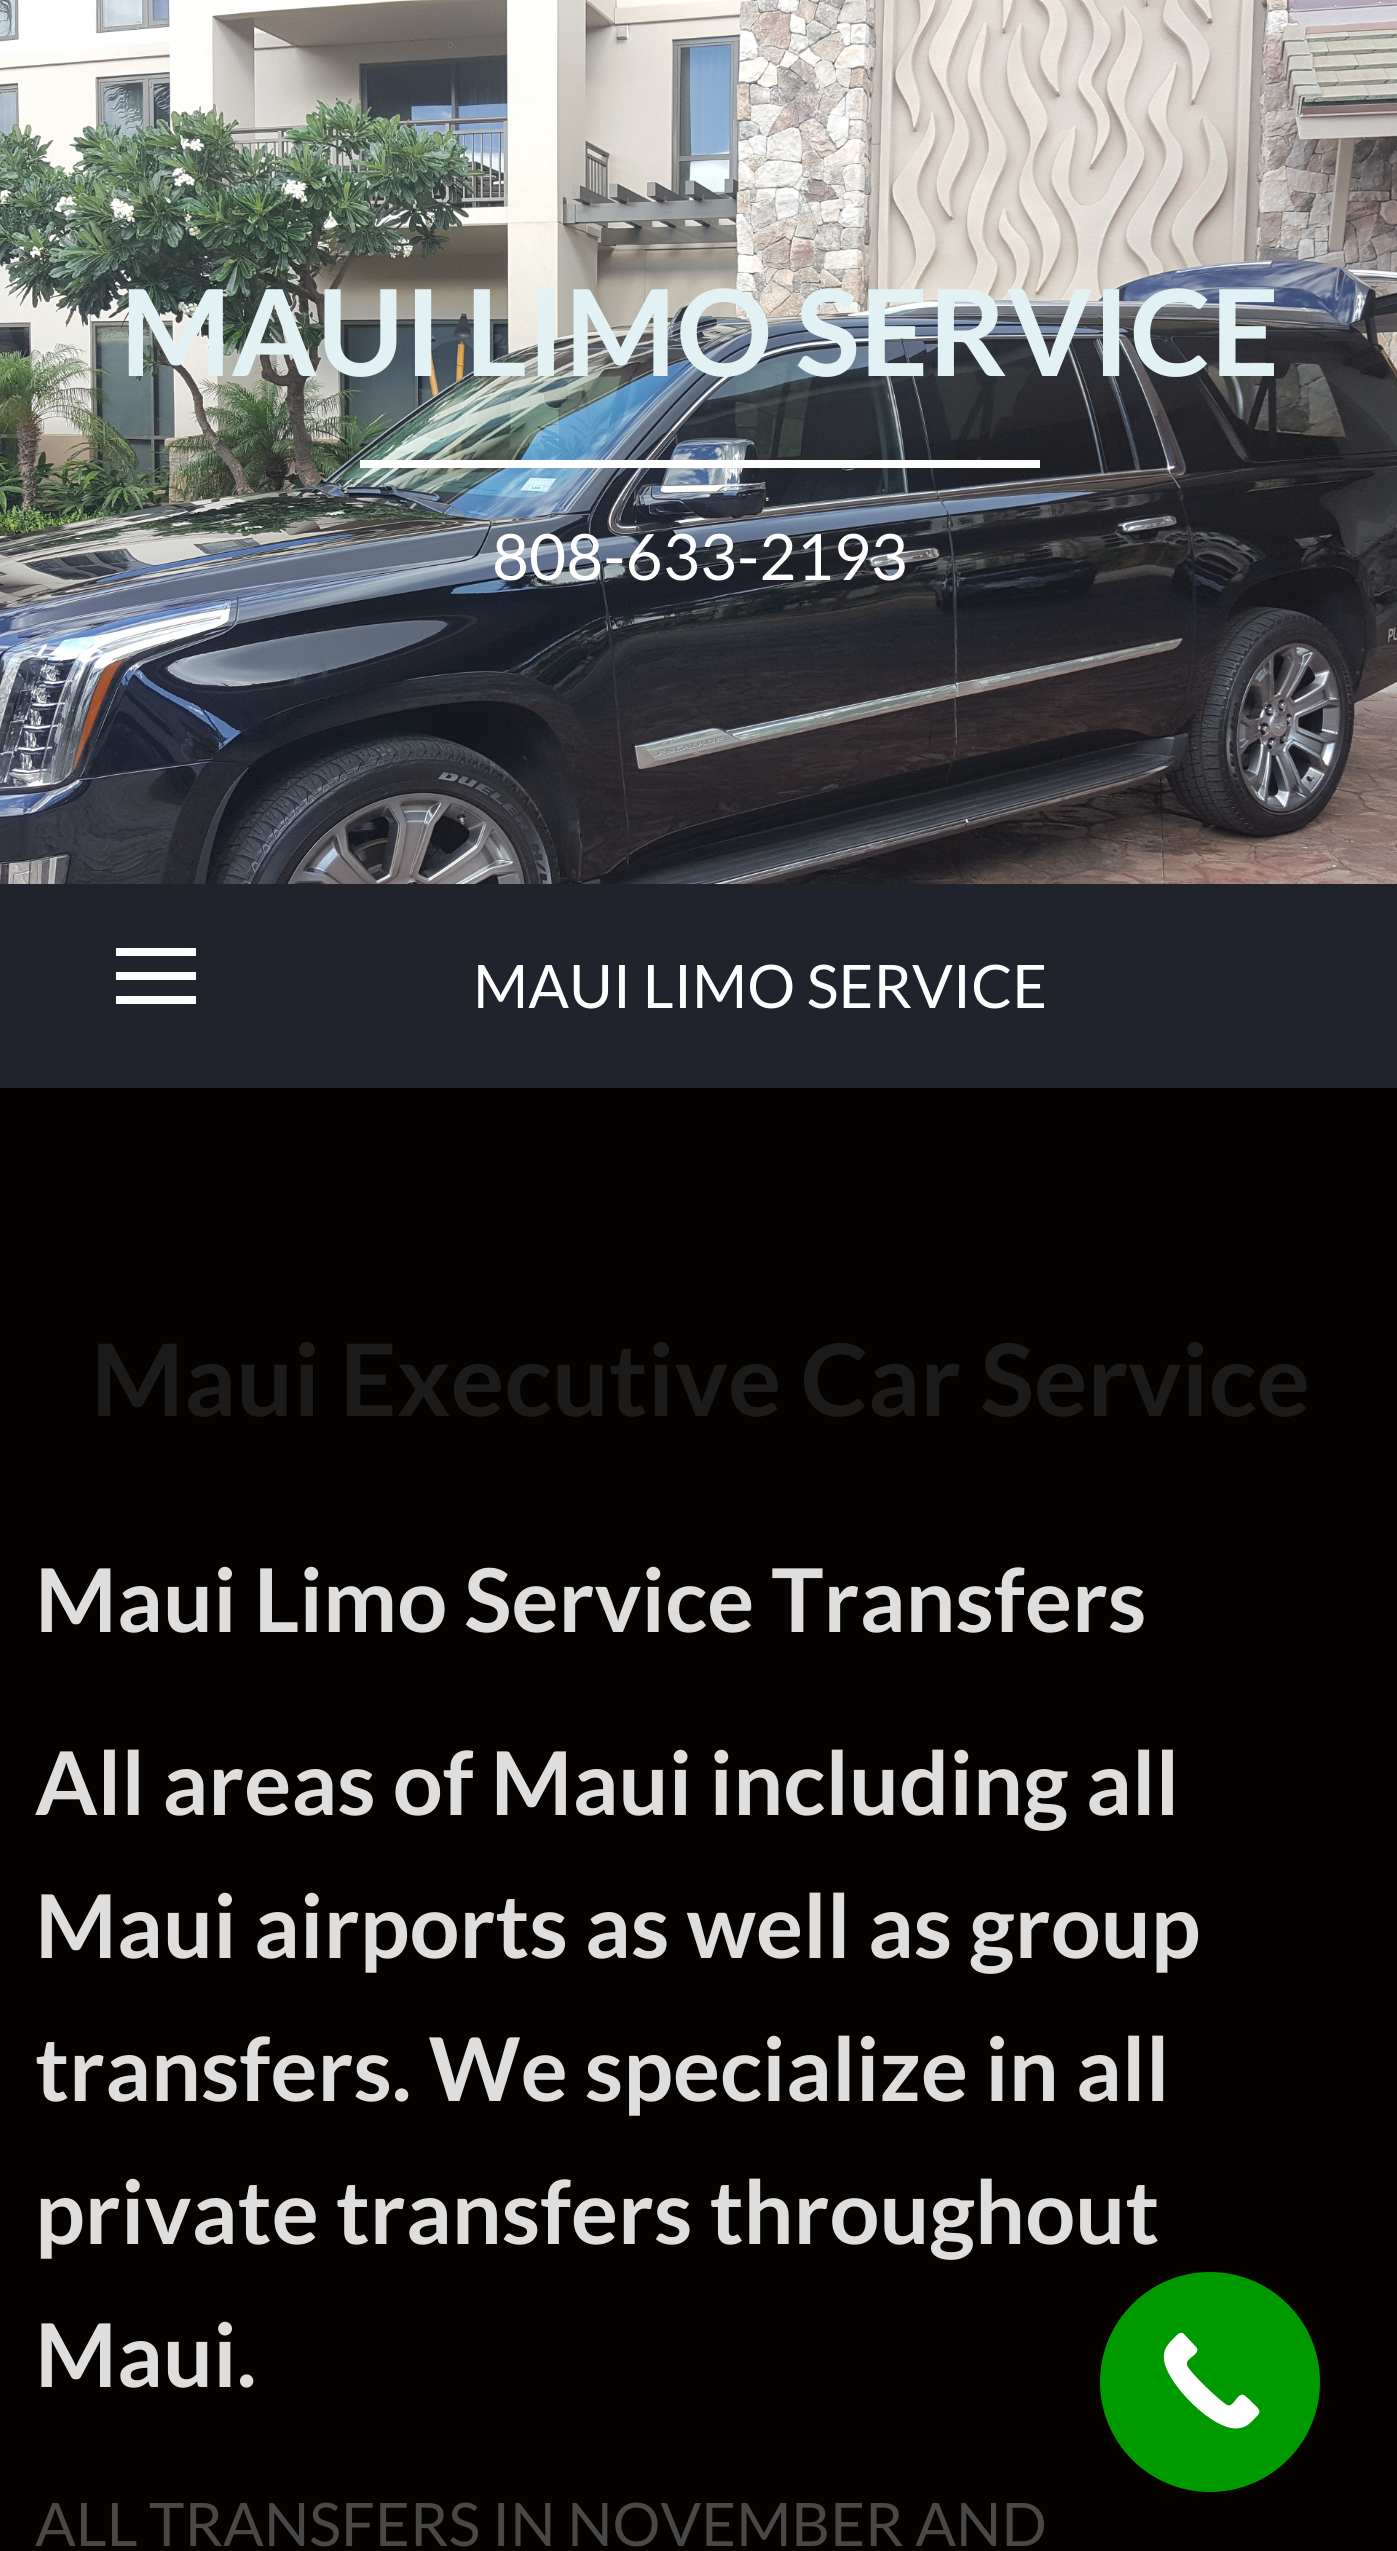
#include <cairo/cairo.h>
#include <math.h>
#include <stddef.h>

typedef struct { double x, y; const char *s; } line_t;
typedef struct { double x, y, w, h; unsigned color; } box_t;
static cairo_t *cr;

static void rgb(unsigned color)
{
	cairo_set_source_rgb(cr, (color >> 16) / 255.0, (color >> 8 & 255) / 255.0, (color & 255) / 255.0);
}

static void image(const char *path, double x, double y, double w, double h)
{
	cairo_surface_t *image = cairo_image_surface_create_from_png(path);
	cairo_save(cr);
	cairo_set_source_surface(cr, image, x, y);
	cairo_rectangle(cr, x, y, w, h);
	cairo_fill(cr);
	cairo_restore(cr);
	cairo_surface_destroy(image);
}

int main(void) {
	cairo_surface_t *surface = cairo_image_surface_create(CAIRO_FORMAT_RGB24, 1397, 2551);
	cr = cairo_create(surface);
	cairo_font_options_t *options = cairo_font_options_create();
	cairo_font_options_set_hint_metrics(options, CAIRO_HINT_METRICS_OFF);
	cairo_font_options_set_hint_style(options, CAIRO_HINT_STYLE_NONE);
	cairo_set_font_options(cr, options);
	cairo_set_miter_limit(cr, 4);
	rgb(0x050200);
	cairo_paint(cr);
	image("img/1.png", 0, 0, 1397, 884);
	{
		static const box_t items[] = {
			{360, 460, 680, 8, 0xffffff},
			{0, 884, 1397, 204, 0x20232c},
			{116, 948, 80, 8, 0xffffff},
			{116, 972, 80, 8, 0xffffff},
			{116, 996, 80, 8, 0xffffff},
		};
		for (size_t i = 0; i < sizeof items / sizeof *items; i++) {
			rgb(items[i].color);
			cairo_rectangle(cr, items[i].x, items[i].y, items[i].w, items[i].h);
			cairo_fill(cr);
		}
	}
	rgb(0x009900);
	cairo_arc(cr, 1210, 2382, 110, 0, 2 * M_PI);
	cairo_fill(cr);
	rgb(0xffffff);
	cairo_new_path(cr);
	cairo_move_to(cr, 1258, 2415);
	cairo_curve_to(cr, 1253, 2420, 1248, 2427, 1240, 2428);
	cairo_curve_to(cr, 1215, 2434, 1165, 2382, 1164, 2359);
	cairo_curve_to(cr, 1163, 2352, 1166, 2347, 1170, 2342);
	cairo_line_to(cr, 1175, 2337);
	cairo_curve_to(cr, 1177, 2335, 1179, 2332, 1183, 2333);
	cairo_line_to(cr, 1197, 2348);
	cairo_curve_to(cr, 1200, 2355, 1185, 2358, 1187, 2365);
	cairo_curve_to(cr, 1189, 2372, 1220, 2401, 1227, 2405);
	cairo_curve_to(cr, 1234, 2408, 1237, 2392, 1244, 2395);
	cairo_line_to(cr, 1250, 2400);
	cairo_curve_to(cr, 1252, 2403, 1258, 2407, 1259, 2410);
	cairo_curve_to(cr, 1260, 2412, 1259, 2414, 1258, 2415);
	cairo_close_path(cr);
	cairo_fill(cr);
	cairo_select_font_face(cr, "Lato", CAIRO_FONT_SLANT_NORMAL, CAIRO_FONT_WEIGHT_BOLD);
	cairo_set_font_size(cr, 120);
	rgb(0xe1f1f4);
	cairo_move_to(cr, 120, 376);
	cairo_show_text(cr, "MAUI LIMO SERVICE");
	cairo_select_font_face(cr, "Lato", CAIRO_FONT_SLANT_NORMAL, CAIRO_FONT_WEIGHT_NORMAL);
	cairo_set_font_size(cr, 64);
	rgb(0xffffff);
	cairo_move_to(cr, 492, 580);
	cairo_show_text(cr, "808-633-2193");
	cairo_set_font_size(cr, 60);
	cairo_move_to(cr, 473, 1008);
	cairo_show_text(cr, "MAUI LIMO SERVICE");
	cairo_select_font_face(cr, "Lato", CAIRO_FONT_SLANT_NORMAL, CAIRO_FONT_WEIGHT_BOLD);
	cairo_set_font_size(cr, 100);
	rgb(0x1b1b1b);
	cairo_move_to(cr, 91, 1416);
	cairo_show_text(cr, "Maui Executive Car Service");
	cairo_set_font_size(cr, 88);
	rgb(0xdedede);
	{
		static const line_t items[] = {
			{35, 1632, "Maui Limo Service Transfers"},
			{35, 1815, "All areas of Maui including all"},
			{35, 1958, "Maui airports as well as group"},
			{35, 2101, "transfers. We specialize in all"},
			{35, 2244, "private transfers throughout"},
			{35, 2387, "Maui."},
		};
		for (size_t i = 0; i < sizeof items / sizeof *items; i++) {
			cairo_move_to(cr, items[i].x, items[i].y);
			cairo_show_text(cr, items[i].s);
		}
	}
	cairo_select_font_face(cr, "Lato", CAIRO_FONT_SLANT_NORMAL, CAIRO_FONT_WEIGHT_NORMAL);
	cairo_set_font_size(cr, 60);
	rgb(0x484848);
	cairo_move_to(cr, 35, 2546);
	cairo_show_text(cr, "ALL TRANSFERS IN NOVEMBER AND");
	cairo_surface_write_to_png(surface, "page.png");
	cairo_font_options_destroy(options);
	cairo_destroy(cr);
	cairo_surface_destroy(surface);
	return 0;
}
